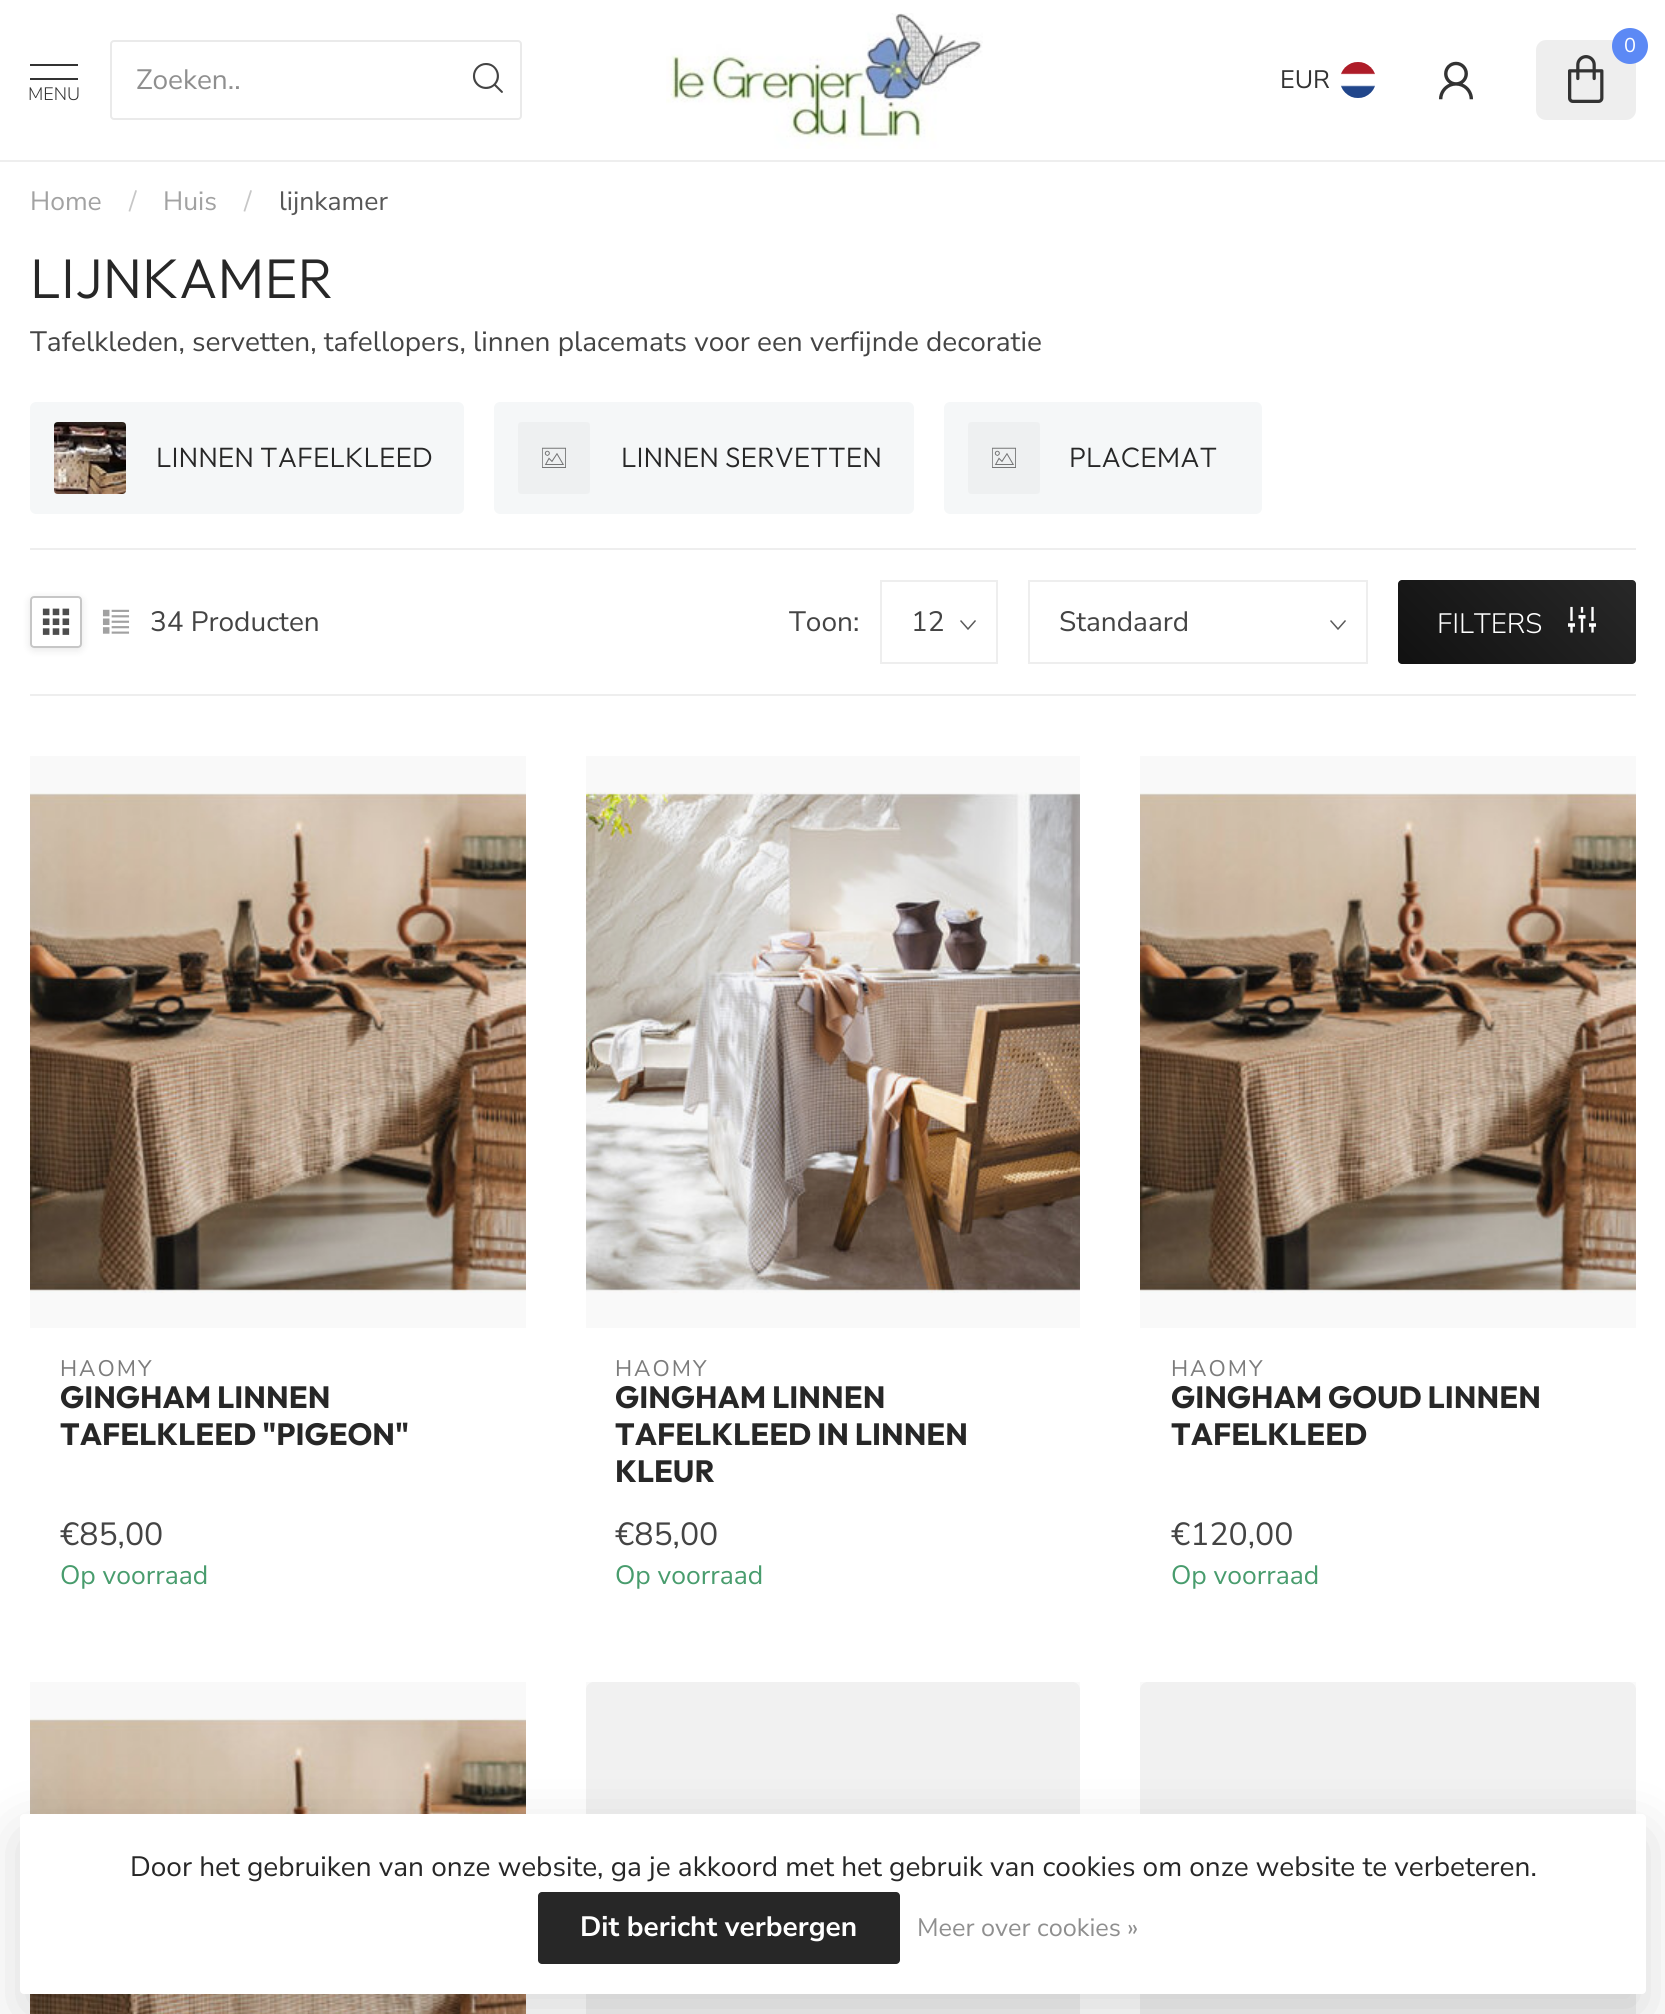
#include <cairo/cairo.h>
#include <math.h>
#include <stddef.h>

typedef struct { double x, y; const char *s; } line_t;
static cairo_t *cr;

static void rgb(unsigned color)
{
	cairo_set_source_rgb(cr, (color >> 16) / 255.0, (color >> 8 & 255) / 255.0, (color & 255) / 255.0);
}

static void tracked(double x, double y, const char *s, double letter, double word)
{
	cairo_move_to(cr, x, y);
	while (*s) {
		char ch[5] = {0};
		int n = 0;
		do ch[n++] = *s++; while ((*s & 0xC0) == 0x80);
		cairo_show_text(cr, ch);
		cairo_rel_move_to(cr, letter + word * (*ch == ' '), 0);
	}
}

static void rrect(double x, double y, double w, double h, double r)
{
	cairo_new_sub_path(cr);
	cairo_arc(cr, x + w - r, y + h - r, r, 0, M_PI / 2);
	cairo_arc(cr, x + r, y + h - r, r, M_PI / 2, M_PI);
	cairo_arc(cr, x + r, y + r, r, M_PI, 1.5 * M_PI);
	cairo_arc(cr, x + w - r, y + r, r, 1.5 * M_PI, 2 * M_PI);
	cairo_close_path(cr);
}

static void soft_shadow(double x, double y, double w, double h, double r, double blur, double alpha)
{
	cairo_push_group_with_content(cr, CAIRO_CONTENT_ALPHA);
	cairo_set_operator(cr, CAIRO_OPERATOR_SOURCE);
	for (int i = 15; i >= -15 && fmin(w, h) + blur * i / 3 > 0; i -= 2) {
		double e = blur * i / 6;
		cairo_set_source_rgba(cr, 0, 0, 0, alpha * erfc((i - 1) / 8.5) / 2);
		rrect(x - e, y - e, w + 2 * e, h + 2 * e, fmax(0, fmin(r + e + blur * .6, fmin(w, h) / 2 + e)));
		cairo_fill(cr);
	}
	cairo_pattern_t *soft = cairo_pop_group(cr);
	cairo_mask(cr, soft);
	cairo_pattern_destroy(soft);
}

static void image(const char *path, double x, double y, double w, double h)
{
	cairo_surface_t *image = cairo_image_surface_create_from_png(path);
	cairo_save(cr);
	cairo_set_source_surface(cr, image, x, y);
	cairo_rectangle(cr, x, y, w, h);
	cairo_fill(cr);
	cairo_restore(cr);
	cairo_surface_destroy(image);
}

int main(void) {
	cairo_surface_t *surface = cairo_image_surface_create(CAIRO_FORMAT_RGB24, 1665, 2014);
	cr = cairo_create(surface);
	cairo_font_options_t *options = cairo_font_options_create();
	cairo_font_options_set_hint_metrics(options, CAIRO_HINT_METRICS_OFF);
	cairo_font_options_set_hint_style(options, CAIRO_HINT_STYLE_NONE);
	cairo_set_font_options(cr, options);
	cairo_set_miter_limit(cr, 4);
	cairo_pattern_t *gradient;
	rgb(0xffffff);
	cairo_paint(cr);
	rrect(111, 41, 410, 78, 3);
	rgb(0xeaeaea);
	cairo_stroke(cr);
	image("img/1.png", 472, 63, 31, 30);
	rgb(0x333333);
	cairo_rectangle(cr, 30, 64, 48, 2);
	cairo_fill(cr);
	cairo_rectangle(cr, 30, 78, 48, 2);
	cairo_fill(cr);
	image("img/2.png", 666, 13, 317, 136);
	rgb(0xeeeeee);
	rrect(1536, 40, 100, 80, 10);
	cairo_fill(cr);
	rgb(0x5c89f5);
	cairo_arc(cr, 1630, 46, 18, 0, 2 * M_PI);
	cairo_fill(cr);
	image("img/3.png", 1568, 55, 36, 48);
	image("img/4.png", 1340, 62, 35, 36);
	image("img/5.png", 1439, 61, 34, 39);
	rgb(0xeeeeee);
	cairo_rectangle(cr, 0, 160, 1665, 2);
	cairo_fill(cr);
	rgb(0xf5f7f8);
	rrect(30, 402, 434, 112, 6);
	cairo_fill(cr);
	image("img/6.png", 54, 422, 72, 72);
	rrect(494, 402, 420, 112, 6);
	cairo_fill(cr);
	image("img/7.png", 518, 422, 72, 72);
	rrect(944, 402, 318, 112, 6);
	cairo_fill(cr);
	image("img/7.png", 968, 422, 72, 72);
	rgb(0xeeeeee);
	cairo_rectangle(cr, 30, 548, 1606, 2);
	cairo_fill(cr);
	cairo_rectangle(cr, 30, 694, 1606, 2);
	cairo_fill(cr);
	cairo_save(cr);
	cairo_set_fill_rule(cr, CAIRO_FILL_RULE_EVEN_ODD);
	cairo_new_path(cr);
	cairo_move_to(cr, 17, 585);
	cairo_line_to(cr, 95, 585);
	cairo_line_to(cr, 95, 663);
	cairo_line_to(cr, 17, 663);
	cairo_close_path(cr);
	cairo_move_to(cr, 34, 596);
	cairo_line_to(cr, 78, 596);
	cairo_curve_to(cr, 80, 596, 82, 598, 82, 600);
	cairo_line_to(cr, 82, 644);
	cairo_curve_to(cr, 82, 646, 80, 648, 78, 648);
	cairo_line_to(cr, 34, 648);
	cairo_curve_to(cr, 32, 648, 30, 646, 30, 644);
	cairo_line_to(cr, 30, 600);
	cairo_curve_to(cr, 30, 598, 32, 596, 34, 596);
	cairo_close_path(cr);
	cairo_clip(cr);
	rgb(0x000000);
	soft_shadow(30, 598, 52, 52, 4, 4, 0.1);
	cairo_restore(cr);
	rrect(31, 597, 50, 50, 3);
	rgb(0xc6c6c6);
	cairo_stroke(cr);
	image("img/8.png", 42, 608, 28, 27);
	image("img/9.png", 102, 609, 28, 25);
	cairo_new_path(cr);
	cairo_move_to(cr, 975.5, 620.5);
	cairo_line_to(cr, 968, 629);
	cairo_line_to(cr, 960.5, 620.5);
	rgb(0x595959);
	cairo_set_line_width(cr, 1.5);
	cairo_stroke(cr);
	cairo_rectangle(cr, 881, 581, 116, 82);
	rgb(0xeeeeee);
	cairo_set_line_width(cr, 2);
	cairo_stroke(cr);
	cairo_new_path(cr);
	cairo_move_to(cr, 1345.5, 620.5);
	cairo_line_to(cr, 1338, 629);
	cairo_line_to(cr, 1330.5, 620.5);
	rgb(0x595959);
	cairo_set_line_width(cr, 1.5);
	cairo_stroke(cr);
	cairo_rectangle(cr, 1029, 581, 338, 82);
	rgb(0xeeeeee);
	cairo_set_line_width(cr, 2);
	cairo_stroke(cr);
	gradient = cairo_pattern_create_linear(1437, 703, 1598, 542);
	cairo_pattern_add_color_stop_rgba(gradient, 0, 0.067, 0.067, 0.067, 1);
	cairo_pattern_add_color_stop_rgba(gradient, 1, 0.157, 0.157, 0.157, 1);
	cairo_set_source(cr, gradient);
	cairo_pattern_destroy(gradient);
	rrect(1398, 580, 238, 84, 4);
	cairo_fill(cr);
	image("img/10.png", 1568, 606, 28, 27);
	image("img/11.png", 30, 793, 496, 500);
	cairo_set_source_rgba(cr, 0.608, 0.608, 0.608, 0.06);
	cairo_rectangle(cr, 30, 756, 496, 572);
	cairo_fill(cr);
	image("img/12.png", 586, 792, 494, 501);
	cairo_rectangle(cr, 586, 756, 494, 572);
	cairo_fill(cr);
	image("img/11.png", 1140, 793, 496, 500);
	cairo_rectangle(cr, 1140, 756, 496, 572);
	cairo_fill(cr);
	image("img/13.png", 30, 1718, 496, 296);
	cairo_rectangle(cr, 30, 1682, 496, 332);
	cairo_fill(cr);
	rgb(0xf6f6f6);
	cairo_new_path(cr);
	cairo_move_to(cr, 594, 1682);
	cairo_line_to(cr, 1072, 1682);
	cairo_curve_to(cr, 1076.5, 1682, 1080, 1685.5, 1080, 1690);
	cairo_line_to(cr, 1080, 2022);
	cairo_line_to(cr, 586, 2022);
	cairo_line_to(cr, 586, 1690);
	cairo_curve_to(cr, 586, 1685.5, 589.5, 1682, 594, 1682);
	cairo_close_path(cr);
	cairo_fill(cr);
	cairo_set_source_rgba(cr, 0.608, 0.608, 0.608, 0.06);
	cairo_rectangle(cr, 586, 1682, 494, 332);
	cairo_fill(cr);
	rgb(0xf6f6f6);
	cairo_new_path(cr);
	cairo_move_to(cr, 1148, 1682);
	cairo_line_to(cr, 1628, 1682);
	cairo_curve_to(cr, 1632.5, 1682, 1636, 1685.5, 1636, 1690);
	cairo_line_to(cr, 1636, 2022);
	cairo_line_to(cr, 1140, 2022);
	cairo_line_to(cr, 1140, 1690);
	cairo_curve_to(cr, 1140, 1685.5, 1143.5, 1682, 1148, 1682);
	cairo_close_path(cr);
	cairo_fill(cr);
	cairo_set_source_rgba(cr, 0.608, 0.608, 0.608, 0.06);
	cairo_rectangle(cr, 1140, 1682, 496, 332);
	cairo_fill(cr);
	rgb(0x000000);
	soft_shadow(20, 1834, 1626, 180, 4, 30, 0.15);
	rgb(0xffffff);
	rrect(20, 1814, 1626, 180, 4);
	cairo_fill(cr);
	rgb(0x272727);
	rrect(538, 1892, 362, 72, 4);
	cairo_fill(cr);
	cairo_select_font_face(cr, "Nunito Sans", CAIRO_FONT_SLANT_NORMAL, CAIRO_FONT_WEIGHT_NORMAL);
	cairo_set_font_size(cr, 28);
	rgb(0x8f8f8f);
	cairo_move_to(cr, 136, 89);
	cairo_show_text(cr, "Zoeken..");
	cairo_select_font_face(cr, "Nunito Sans Light", CAIRO_FONT_SLANT_NORMAL, CAIRO_FONT_WEIGHT_NORMAL);
	cairo_set_font_size(cr, 18);
	rgb(0x333333);
	cairo_move_to(cr, 28, 100);
	cairo_show_text(cr, "MENU");
	cairo_select_font_face(cr, "Nunito Sans", CAIRO_FONT_SLANT_NORMAL, CAIRO_FONT_WEIGHT_NORMAL);
	cairo_set_font_size(cr, 20);
	rgb(0xffffff);
	cairo_move_to(cr, 1624, 52);
	cairo_show_text(cr, "0");
	cairo_set_font_size(cr, 25.25);
	rgb(0x333333);
	cairo_move_to(cr, 1280, 88);
	cairo_show_text(cr, "EUR");
	cairo_set_font_size(cr, 26.5);
	rgb(0xa2a2a2);
	cairo_move_to(cr, 30, 210);
	cairo_show_text(cr, "Home");
	rgb(0xc7c7c7);
	cairo_move_to(cr, 129, 210);
	cairo_show_text(cr, "/");
	rgb(0xa2a2a2);
	cairo_move_to(cr, 163, 210);
	cairo_show_text(cr, "Huis");
	rgb(0xc7c7c7);
	cairo_move_to(cr, 244, 210);
	cairo_show_text(cr, "/");
	rgb(0x575757);
	cairo_move_to(cr, 279, 210);
	cairo_show_text(cr, "lijnkamer");
	cairo_select_font_face(cr, "Outfit Light", CAIRO_FONT_SLANT_NORMAL, CAIRO_FONT_WEIGHT_NORMAL);
	cairo_set_font_size(cr, 56);
	rgb(0x272727);
	cairo_move_to(cr, 30, 298);
	cairo_show_text(cr, "LIJNKAMER");
	cairo_select_font_face(cr, "Nunito Sans", CAIRO_FONT_SLANT_NORMAL, CAIRO_FONT_WEIGHT_NORMAL);
	cairo_set_font_size(cr, 28);
	rgb(0x444444);
	cairo_move_to(cr, 30, 351);
	cairo_show_text(cr, "Tafelkleden, servetten, tafellopers, linnen placemats voor een verfijnde decoratie");
	cairo_select_font_face(cr, "Outfit Light", CAIRO_FONT_SLANT_NORMAL, CAIRO_FONT_WEIGHT_NORMAL);
	rgb(0x272727);
	{
		static const line_t items[] = {
			{156, 467, "LINNEN TAFELKLEED"},
			{621, 467, "LINNEN SERVETTEN"},
			{1069, 467, "PLACEMAT"},
		};
		for (size_t i = 0; i < sizeof items / sizeof *items; i++) {
			cairo_move_to(cr, items[i].x, items[i].y);
			cairo_show_text(cr, items[i].s);
		}
	}
	cairo_select_font_face(cr, "Nunito Sans", CAIRO_FONT_SLANT_NORMAL, CAIRO_FONT_WEIGHT_NORMAL);
	rgb(0x444444);
	{
		static const line_t items[] = {
			{150, 631, "34 Producten"},
			{789, 631, "Toon:"},
			{911, 631, "12"},
			{1059, 631, "Standaard"},
		};
		for (size_t i = 0; i < sizeof items / sizeof *items; i++) {
			cairo_move_to(cr, items[i].x, items[i].y);
			cairo_show_text(cr, items[i].s);
		}
	}
	cairo_select_font_face(cr, "Nunito Sans Light", CAIRO_FONT_SLANT_NORMAL, CAIRO_FONT_WEIGHT_NORMAL);
	rgb(0xffffff);
	cairo_move_to(cr, 1437, 633);
	cairo_show_text(cr, "FILTERS");
	cairo_select_font_face(cr, "Nunito Sans", CAIRO_FONT_SLANT_NORMAL, CAIRO_FONT_WEIGHT_NORMAL);
	cairo_set_font_size(cr, 22.5);
	rgb(0x7c7c7c);
	tracked(60, 1376, "HAOMY", 2, 0);
	cairo_select_font_face(cr, "Outfit", CAIRO_FONT_SLANT_NORMAL, CAIRO_FONT_WEIGHT_BOLD);
	cairo_set_font_size(cr, 30.75);
	rgb(0x272727);
	cairo_move_to(cr, 60, 1408);
	cairo_show_text(cr, "GINGHAM LINNEN");
	cairo_move_to(cr, 60, 1445);
	cairo_show_text(cr, "TAFELKLEED \"PIGEON\"");
	cairo_select_font_face(cr, "Nunito Sans", CAIRO_FONT_SLANT_NORMAL, CAIRO_FONT_WEIGHT_NORMAL);
	cairo_set_font_size(cr, 32);
	rgb(0x444444);
	cairo_move_to(cr, 60, 1545);
	cairo_show_text(cr, "€85,00");
	cairo_set_font_size(cr, 26.5);
	rgb(0x489c6d);
	cairo_move_to(cr, 60, 1584);
	cairo_show_text(cr, "Op voorraad");
	cairo_set_font_size(cr, 22.5);
	rgb(0x7c7c7c);
	tracked(615, 1376, "HAOMY", 2, 0);
	cairo_select_font_face(cr, "Outfit", CAIRO_FONT_SLANT_NORMAL, CAIRO_FONT_WEIGHT_BOLD);
	cairo_set_font_size(cr, 30.75);
	rgb(0x272727);
	{
		static const line_t items[] = {
			{615, 1408, "GINGHAM LINNEN"},
			{615, 1445, "TAFELKLEED IN LINNEN"},
			{615, 1482, "KLEUR"},
		};
		for (size_t i = 0; i < sizeof items / sizeof *items; i++) {
			cairo_move_to(cr, items[i].x, items[i].y);
			cairo_show_text(cr, items[i].s);
		}
	}
	cairo_select_font_face(cr, "Nunito Sans", CAIRO_FONT_SLANT_NORMAL, CAIRO_FONT_WEIGHT_NORMAL);
	cairo_set_font_size(cr, 32);
	rgb(0x444444);
	cairo_move_to(cr, 615, 1545);
	cairo_show_text(cr, "€85,00");
	cairo_set_font_size(cr, 26.5);
	rgb(0x489c6d);
	cairo_move_to(cr, 615, 1584);
	cairo_show_text(cr, "Op voorraad");
	cairo_set_font_size(cr, 22.5);
	rgb(0x7c7c7c);
	tracked(1171, 1376, "HAOMY", 2, 0);
	cairo_select_font_face(cr, "Outfit", CAIRO_FONT_SLANT_NORMAL, CAIRO_FONT_WEIGHT_BOLD);
	cairo_set_font_size(cr, 30.75);
	rgb(0x272727);
	cairo_move_to(cr, 1171, 1408);
	cairo_show_text(cr, "GINGHAM GOUD LINNEN");
	cairo_move_to(cr, 1171, 1445);
	cairo_show_text(cr, "TAFELKLEED");
	cairo_select_font_face(cr, "Nunito Sans", CAIRO_FONT_SLANT_NORMAL, CAIRO_FONT_WEIGHT_NORMAL);
	cairo_set_font_size(cr, 32);
	rgb(0x444444);
	cairo_move_to(cr, 1171, 1545);
	cairo_show_text(cr, "€120,00");
	cairo_set_font_size(cr, 26.5);
	rgb(0x489c6d);
	cairo_move_to(cr, 1171, 1584);
	cairo_show_text(cr, "Op voorraad");
	cairo_set_font_size(cr, 28);
	rgb(0x272727);
	cairo_move_to(cr, 130, 1876);
	cairo_show_text(cr, "Door het gebruiken van onze website, ga je akkoord met het gebruik van cookies om onze website te verbeteren.");
	cairo_select_font_face(cr, "Nunito Sans", CAIRO_FONT_SLANT_NORMAL, CAIRO_FONT_WEIGHT_BOLD);
	rgb(0xffffff);
	cairo_move_to(cr, 580, 1936);
	cairo_show_text(cr, "Dit bericht verbergen");
	cairo_select_font_face(cr, "Nunito Sans", CAIRO_FONT_SLANT_NORMAL, CAIRO_FONT_WEIGHT_NORMAL);
	cairo_set_font_size(cr, 25.25);
	rgb(0x8f8f8f);
	cairo_move_to(cr, 917, 1936);
	cairo_show_text(cr, "Meer over cookies »");
	cairo_surface_write_to_png(surface, "page.png");
	cairo_font_options_destroy(options);
	cairo_destroy(cr);
	cairo_surface_destroy(surface);
	return 0;
}
